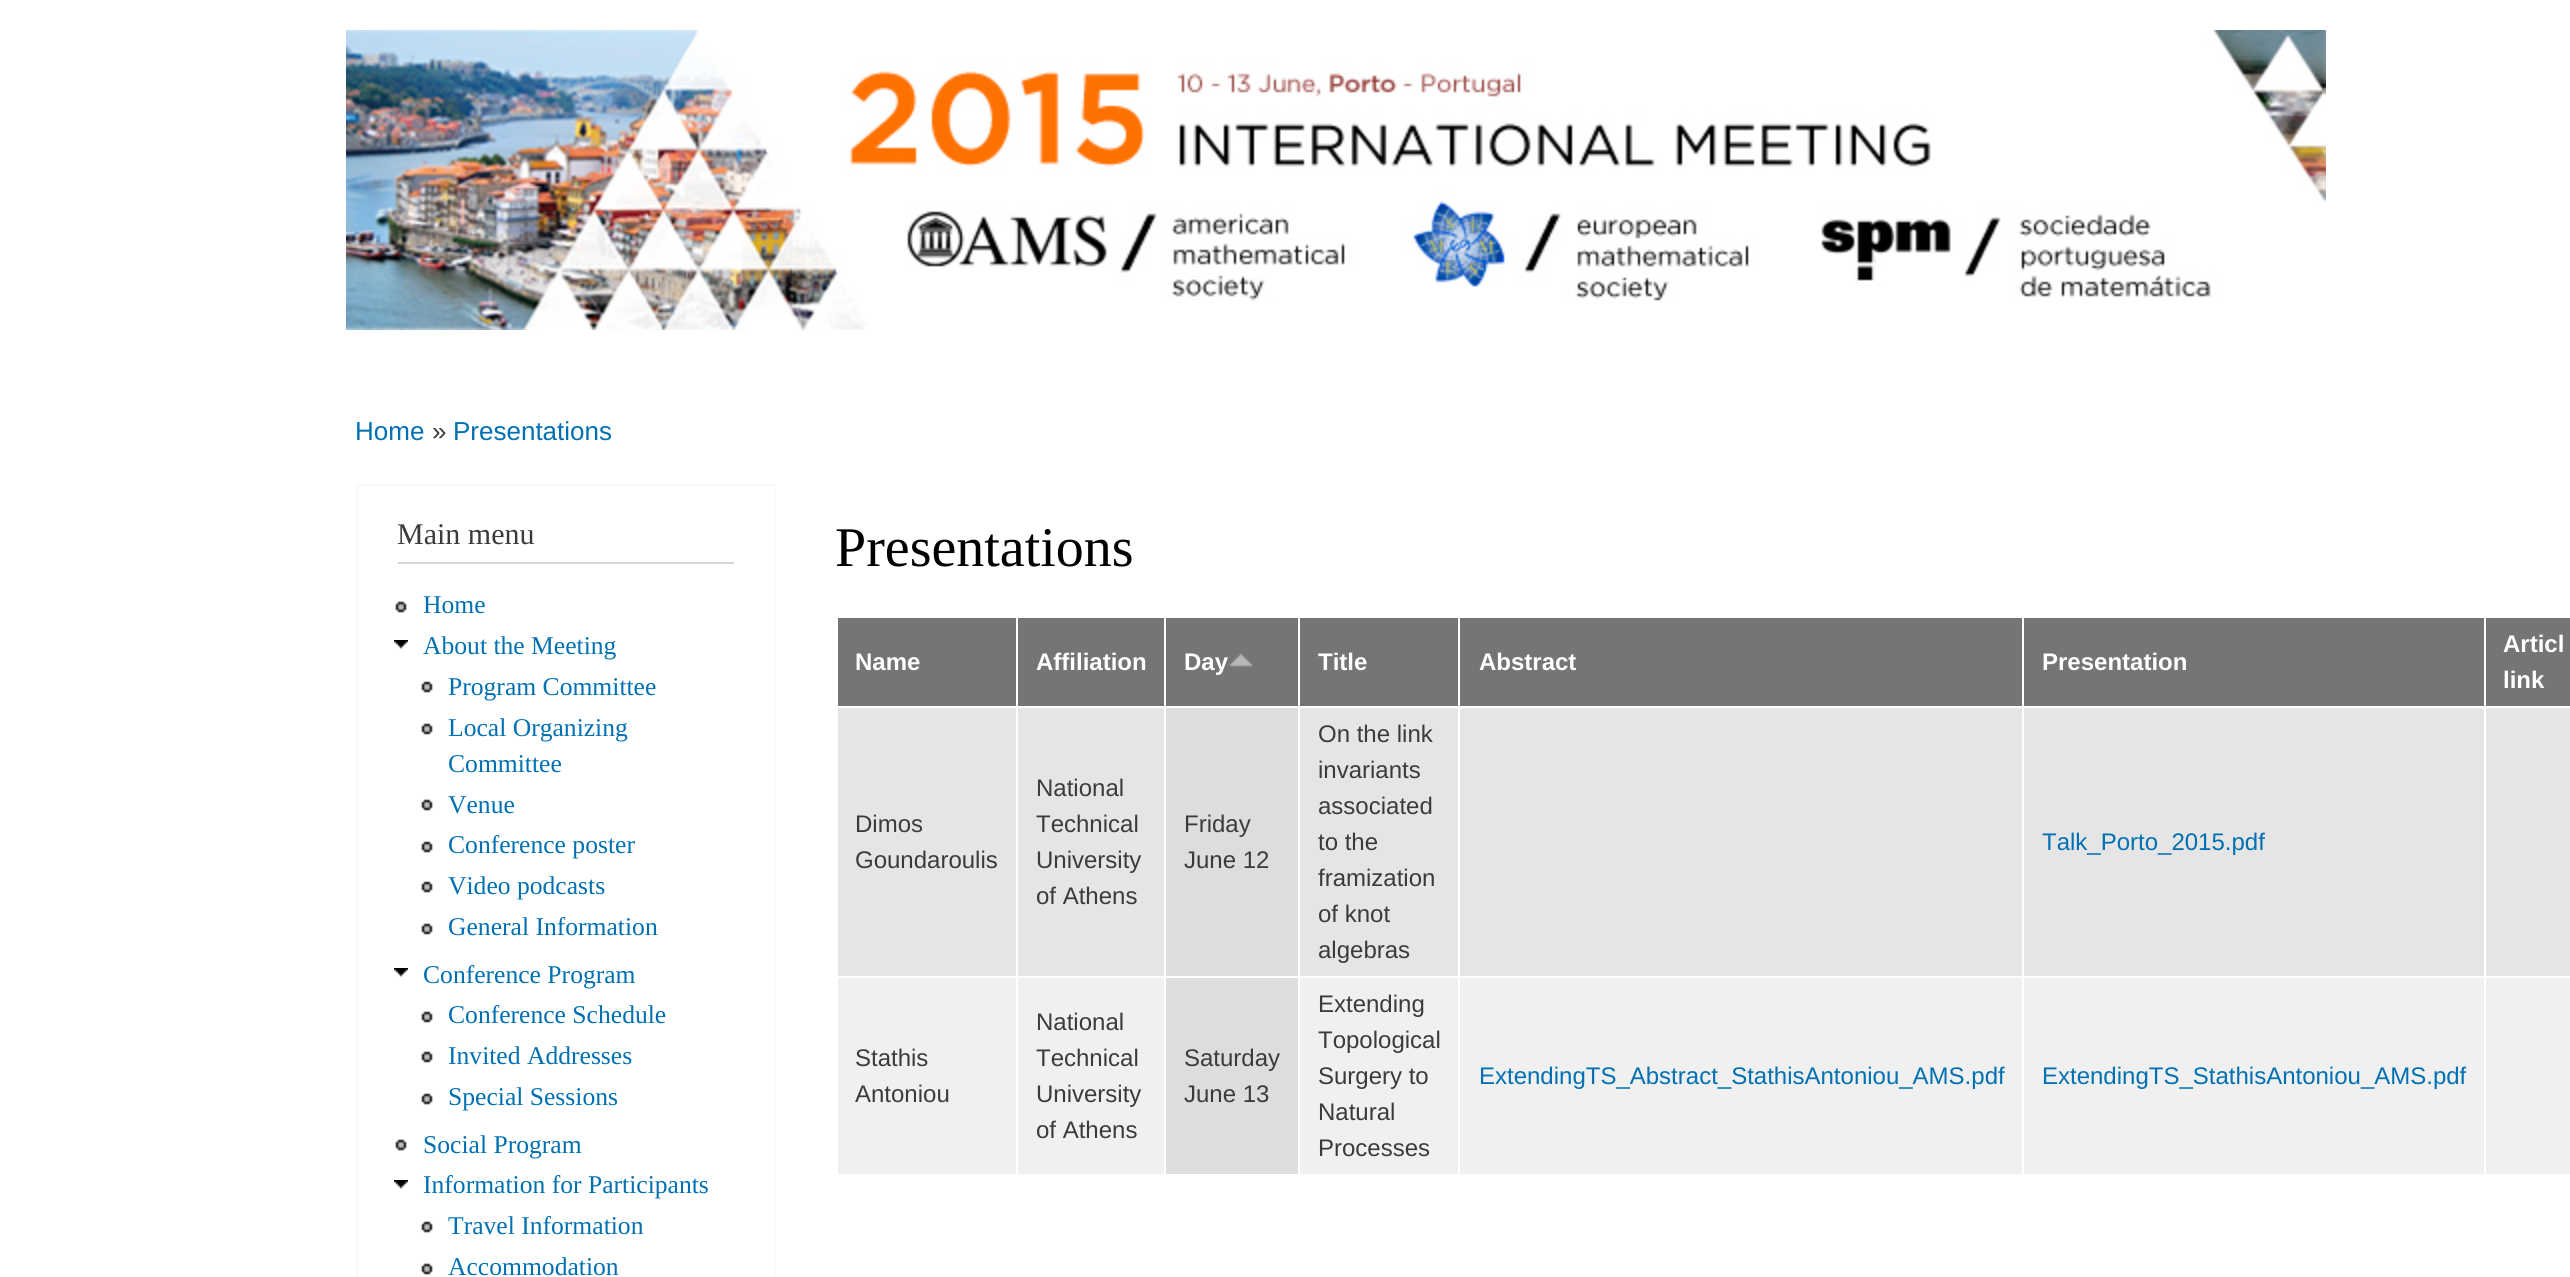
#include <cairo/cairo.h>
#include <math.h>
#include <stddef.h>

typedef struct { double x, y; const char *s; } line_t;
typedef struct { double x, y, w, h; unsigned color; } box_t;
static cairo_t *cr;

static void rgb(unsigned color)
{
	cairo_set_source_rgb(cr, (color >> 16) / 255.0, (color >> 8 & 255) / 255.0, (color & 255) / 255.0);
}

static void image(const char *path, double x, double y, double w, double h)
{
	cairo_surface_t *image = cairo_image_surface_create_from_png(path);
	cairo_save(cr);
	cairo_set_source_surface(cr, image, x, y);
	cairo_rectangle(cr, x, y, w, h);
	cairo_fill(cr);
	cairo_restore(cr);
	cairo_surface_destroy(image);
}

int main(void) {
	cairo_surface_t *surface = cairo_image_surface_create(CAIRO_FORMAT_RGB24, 2570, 1277);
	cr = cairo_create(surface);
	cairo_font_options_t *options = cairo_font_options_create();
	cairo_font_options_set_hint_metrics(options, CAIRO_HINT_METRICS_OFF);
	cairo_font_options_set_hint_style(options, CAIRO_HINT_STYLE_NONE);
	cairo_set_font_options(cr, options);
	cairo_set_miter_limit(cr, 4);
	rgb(0xffffff);
	cairo_paint(cr);
	image("img/1.png", 346, 30, 1980, 300);
	cairo_rectangle(cr, 357, 485, 418, 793);
	rgb(0xf9f9f9);
	cairo_stroke(cr);
	rgb(0xd6d6d6);
	cairo_rectangle(cr, 398, 562, 336, 2);
	cairo_fill(cr);
	image("img/2.png", 395, 601, 12, 12);
	image("img/3.png", 394, 640, 14, 9);
	image("img/2.png", 421, 681, 12, 12);
	image("img/2.png", 421, 723, 12, 12);
	image("img/2.png", 421, 799, 12, 12);
	image("img/2.png", 421, 841, 12, 12);
	image("img/2.png", 421, 881, 12, 12);
	image("img/2.png", 421, 923, 12, 12);
	image("img/3.png", 394, 968, 14, 9);
	image("img/2.png", 421, 1011, 12, 12);
	image("img/2.png", 421, 1051, 12, 12);
	image("img/2.png", 421, 1093, 12, 12);
	image("img/2.png", 395, 1139, 12, 12);
	image("img/3.png", 394, 1180, 14, 9);
	image("img/2.png", 421, 1221, 12, 12);
	image("img/2.png", 421, 1263, 12, 12);
	{
		static const box_t items[] = {
			{838, 618, 178, 88, 0x757575},
			{1018, 618, 146, 88, 0x757575},
			{1166, 618, 132, 88, 0x757575},
		};
		for (size_t i = 0; i < sizeof items / sizeof *items; i++) {
			rgb(items[i].color);
			cairo_rectangle(cr, items[i].x, items[i].y, items[i].w, items[i].h);
			cairo_fill(cr);
		}
	}
	image("img/4.png", 1229, 653, 24, 14);
	{
		static const box_t items[] = {
			{1300, 618, 158, 88, 0x757575},
			{1460, 618, 562, 88, 0x757575},
			{2024, 618, 460, 88, 0x757575},
			{2486, 618, 84, 88, 0x757575},
			{838, 708, 1732, 268, 0xe5e5e5},
			{1166, 708, 132, 268, 0xdddddd},
			{838, 978, 1732, 196, 0xf0f0f0},
			{1016, 706, 2, 470, 0xffffff},
			{1166, 978, 132, 196, 0xdddddd},
			{1164, 706, 2, 470, 0xffffff},
			{1298, 706, 2, 470, 0xffffff},
			{1458, 706, 2, 470, 0xffffff},
			{2022, 706, 2, 470, 0xffffff},
			{2484, 706, 2, 470, 0xffffff},
		};
		for (size_t i = 0; i < sizeof items / sizeof *items; i++) {
			rgb(items[i].color);
			cairo_rectangle(cr, items[i].x, items[i].y, items[i].w, items[i].h);
			cairo_fill(cr);
		}
	}
	cairo_select_font_face(cr, "Liberation Sans", CAIRO_FONT_SLANT_NORMAL, CAIRO_FONT_WEIGHT_NORMAL);
	cairo_set_font_size(cr, 26);
	rgb(0x0070b3);
	cairo_move_to(cr, 355, 440);
	cairo_show_text(cr, "Home");
	rgb(0x3b3b3b);
	cairo_move_to(cr, 432, 440);
	cairo_show_text(cr, "»");
	rgb(0x0070b3);
	cairo_move_to(cr, 453, 440);
	cairo_show_text(cr, "Presentations");
	cairo_select_font_face(cr, "Liberation Serif", CAIRO_FONT_SLANT_NORMAL, CAIRO_FONT_WEIGHT_NORMAL);
	cairo_set_font_size(cr, 30);
	rgb(0x3b3b3b);
	cairo_move_to(cr, 397, 544);
	cairo_show_text(cr, "Main menu");
	cairo_set_font_size(cr, 25.6);
	rgb(0x0070b3);
	{
		static const line_t items[] = {
			{423, 613, "Home"},
			{423, 654, "About the Meeting"},
			{448, 695, "Program Committee"},
			{448, 736, "Local Organizing"},
			{448, 772, "Committee"},
			{448, 813, "Venue"},
			{448, 853, "Conference poster"},
			{448, 894, "Video podcasts"},
			{448, 935, "General Information"},
			{423, 983, "Conference Program"},
			{448, 1023, "Conference Schedule"},
			{448, 1064, "Invited Addresses"},
			{448, 1105, "Special Sessions"},
			{423, 1153, "Social Program"},
			{423, 1193, "Information for Participants"},
			{448, 1234, "Travel Information"},
			{448, 1275, "Accommodation"},
		};
		for (size_t i = 0; i < sizeof items / sizeof *items; i++) {
			cairo_move_to(cr, items[i].x, items[i].y);
			cairo_show_text(cr, items[i].s);
		}
	}
	cairo_set_font_size(cr, 56);
	rgb(0x000000);
	cairo_move_to(cr, 835, 566);
	cairo_show_text(cr, "Presentations");
	cairo_select_font_face(cr, "Liberation Sans", CAIRO_FONT_SLANT_NORMAL, CAIRO_FONT_WEIGHT_BOLD);
	cairo_set_font_size(cr, 24);
	rgb(0xffffff);
	{
		static const line_t items[] = {
			{855, 670, "Name"},
			{1036, 670, "Affiliation"},
			{1184, 670, "Day"},
			{1318, 670, "Title"},
			{1479, 670, "Abstract"},
			{2042, 670, "Presentation"},
			{2503, 652, "Articl"},
			{2503, 688, "link"},
		};
		for (size_t i = 0; i < sizeof items / sizeof *items; i++) {
			cairo_move_to(cr, items[i].x, items[i].y);
			cairo_show_text(cr, items[i].s);
		}
	}
	cairo_select_font_face(cr, "Liberation Sans", CAIRO_FONT_SLANT_NORMAL, CAIRO_FONT_WEIGHT_NORMAL);
	rgb(0x3b3b3b);
	{
		static const line_t items[] = {
			{855, 832, "Dimos"},
			{855, 868, "Goundaroulis"},
			{1036, 796, "National"},
			{1036, 832, "Technical"},
			{1036, 868, "University"},
			{1036, 904, "of Athens"},
			{1184, 832, "Friday"},
			{1184, 868, "June 12"},
			{1318, 742, "On the link"},
			{1318, 778, "invariants"},
			{1318, 814, "associated"},
			{1318, 850, "to the"},
			{1318, 886, "framization"},
			{1318, 922, "of knot"},
			{1318, 958, "algebras"},
		};
		for (size_t i = 0; i < sizeof items / sizeof *items; i++) {
			cairo_move_to(cr, items[i].x, items[i].y);
			cairo_show_text(cr, items[i].s);
		}
	}
	rgb(0x0070b3);
	cairo_move_to(cr, 2042, 850);
	cairo_show_text(cr, "Talk_Porto_2015.pdf");
	rgb(0x3b3b3b);
	{
		static const line_t items[] = {
			{855, 1066, "Stathis"},
			{855, 1102, "Antoniou"},
			{1036, 1030, "National"},
			{1036, 1066, "Technical"},
			{1036, 1102, "University"},
			{1036, 1138, "of Athens"},
			{1184, 1066, "Saturday"},
			{1184, 1102, "June 13"},
			{1318, 1012, "Extending"},
			{1318, 1048, "Topological"},
			{1318, 1084, "Surgery to"},
			{1318, 1120, "Natural"},
			{1318, 1156, "Processes"},
		};
		for (size_t i = 0; i < sizeof items / sizeof *items; i++) {
			cairo_move_to(cr, items[i].x, items[i].y);
			cairo_show_text(cr, items[i].s);
		}
	}
	rgb(0x0070b3);
	cairo_move_to(cr, 1479, 1084);
	cairo_show_text(cr, "ExtendingTS_Abstract_StathisAntoniou_AMS.pdf");
	cairo_move_to(cr, 2042, 1084);
	cairo_show_text(cr, "ExtendingTS_StathisAntoniou_AMS.pdf");
	cairo_surface_write_to_png(surface, "page.png");
	cairo_font_options_destroy(options);
	cairo_destroy(cr);
	cairo_surface_destroy(surface);
	return 0;
}
